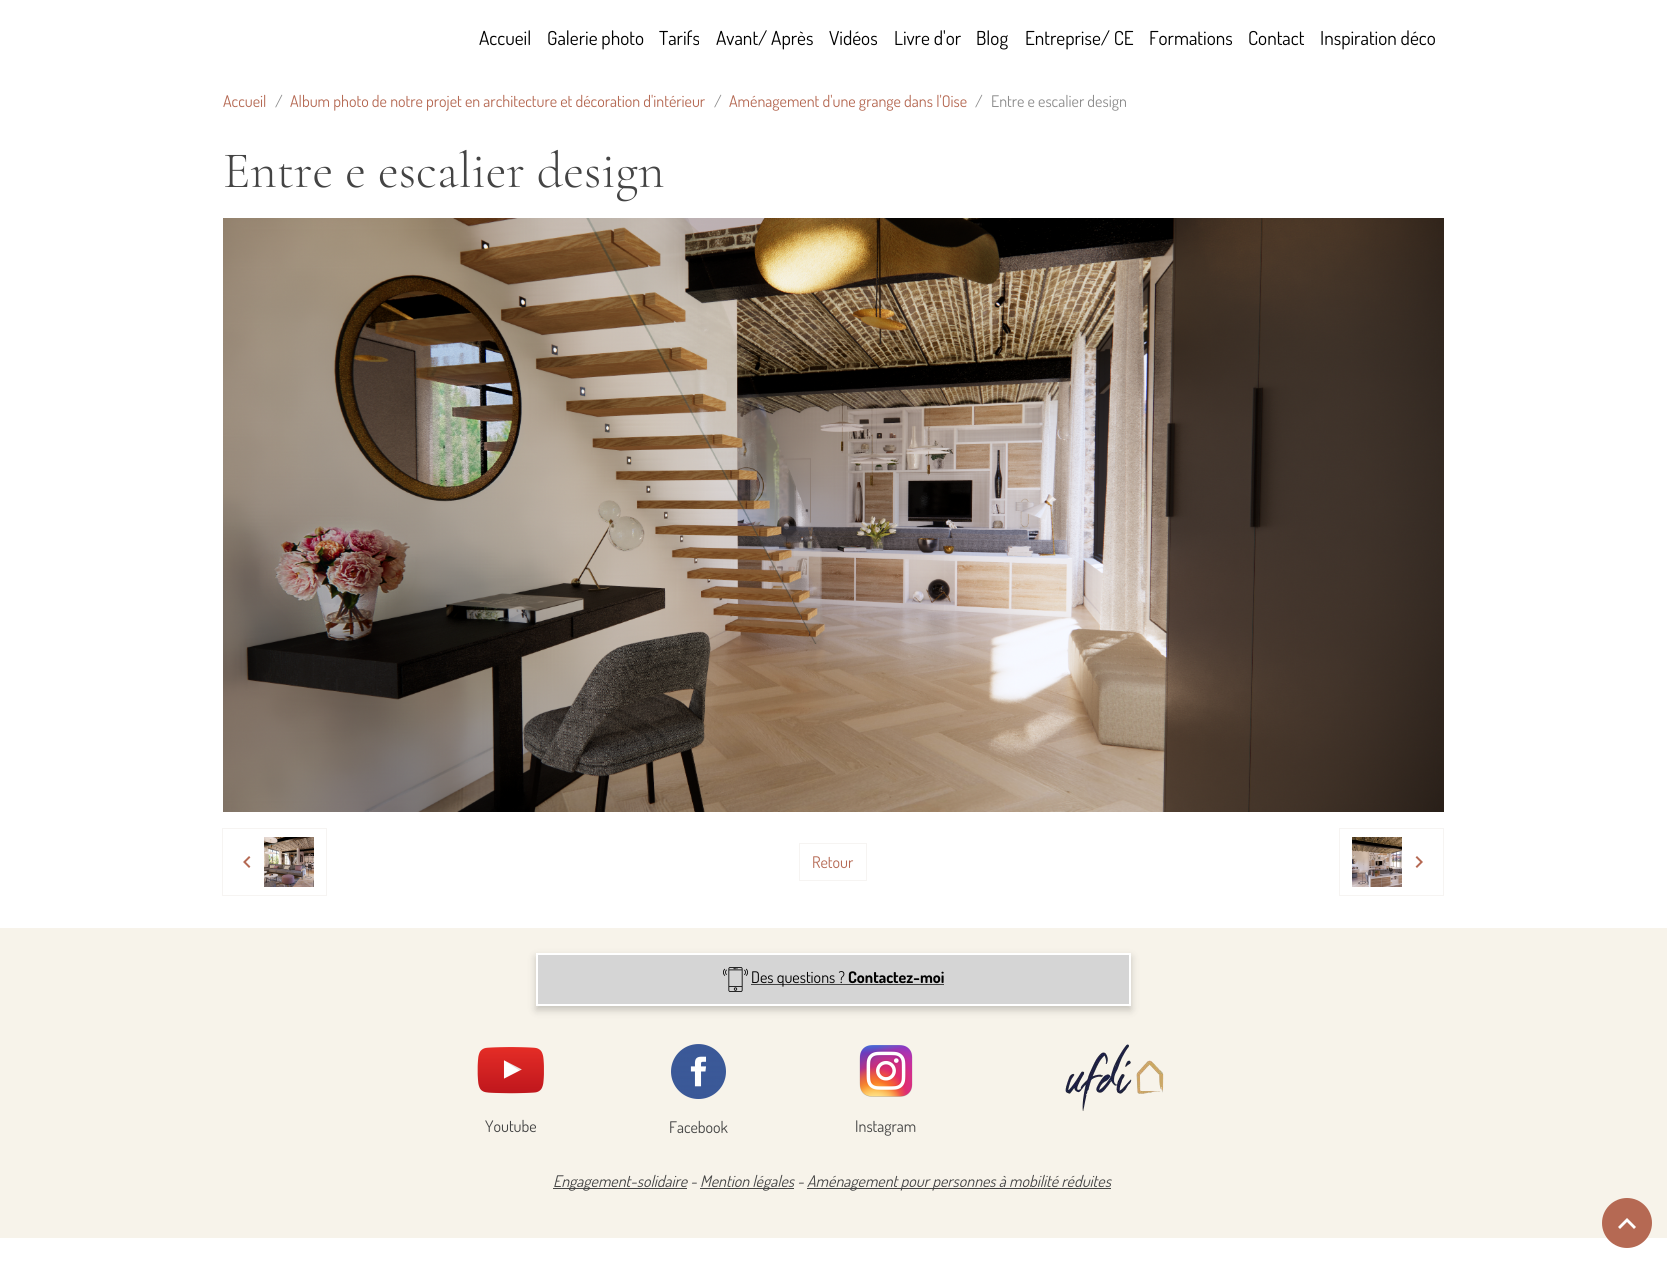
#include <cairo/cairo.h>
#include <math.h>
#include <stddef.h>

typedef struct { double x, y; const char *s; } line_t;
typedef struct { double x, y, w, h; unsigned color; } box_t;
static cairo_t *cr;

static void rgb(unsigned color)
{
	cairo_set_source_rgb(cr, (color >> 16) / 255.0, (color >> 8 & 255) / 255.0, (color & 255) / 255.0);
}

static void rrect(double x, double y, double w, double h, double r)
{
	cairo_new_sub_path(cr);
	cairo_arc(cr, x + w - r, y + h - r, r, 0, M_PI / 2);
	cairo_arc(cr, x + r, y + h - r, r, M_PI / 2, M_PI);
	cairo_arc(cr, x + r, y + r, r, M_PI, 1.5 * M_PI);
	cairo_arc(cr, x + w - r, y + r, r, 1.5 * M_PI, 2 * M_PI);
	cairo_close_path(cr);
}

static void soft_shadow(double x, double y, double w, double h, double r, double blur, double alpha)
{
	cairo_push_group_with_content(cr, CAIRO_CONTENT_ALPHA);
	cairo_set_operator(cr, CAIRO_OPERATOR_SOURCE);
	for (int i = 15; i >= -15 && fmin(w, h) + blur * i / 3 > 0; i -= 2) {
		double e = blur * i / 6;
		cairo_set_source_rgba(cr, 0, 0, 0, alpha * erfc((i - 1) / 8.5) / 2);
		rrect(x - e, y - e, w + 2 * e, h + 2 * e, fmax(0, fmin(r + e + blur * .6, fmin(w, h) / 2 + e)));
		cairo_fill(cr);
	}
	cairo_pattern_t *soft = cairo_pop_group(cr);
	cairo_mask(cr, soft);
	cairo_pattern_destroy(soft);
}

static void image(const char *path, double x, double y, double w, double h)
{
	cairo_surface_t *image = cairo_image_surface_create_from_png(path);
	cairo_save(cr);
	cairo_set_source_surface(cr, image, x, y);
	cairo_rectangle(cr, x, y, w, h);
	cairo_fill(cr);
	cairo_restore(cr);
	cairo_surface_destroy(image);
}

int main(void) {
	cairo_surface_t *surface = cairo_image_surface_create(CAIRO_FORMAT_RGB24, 1667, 1263);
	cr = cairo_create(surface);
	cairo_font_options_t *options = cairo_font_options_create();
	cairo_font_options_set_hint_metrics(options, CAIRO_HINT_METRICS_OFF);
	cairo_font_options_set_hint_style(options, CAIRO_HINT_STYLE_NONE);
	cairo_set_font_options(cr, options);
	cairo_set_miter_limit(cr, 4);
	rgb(0xffffff);
	cairo_paint(cr);
	image("img/1.png", 223, 218, 1221, 594);
	cairo_rectangle(cr, 222.5, 828.5, 104, 67);
	rgb(0xf6f4f2);
	cairo_set_line_width(cr, 1);
	cairo_stroke(cr);
	image("img/2.png", 243, 856, 8, 12);
	image("img/3.png", 264, 837, 50, 50);
	cairo_rectangle(cr, 799.5, 843.5, 67, 37);
	cairo_stroke(cr);
	cairo_rectangle(cr, 1339.5, 828.5, 104, 67);
	cairo_stroke(cr);
	image("img/4.png", 1352, 837, 50, 50);
	image("img/5.png", 1415, 856, 8, 12);
	rgb(0xf7f3ea);
	cairo_rectangle(cr, 0, 928, 1667, 310);
	cairo_fill(cr);
	rgb(0x000000);
	soft_shadow(536, 957, 595, 53, 0, 4, 0.2);
	rgb(0xd5d5d5);
	cairo_rectangle(cr, 537, 954, 593, 51);
	cairo_fill_preserve(cr);
	rgb(0xffffff);
	cairo_set_line_width(cr, 2);
	cairo_stroke(cr);
	image("img/6.png", 723, 967, 25, 25);
	rgb(0x444444);
	cairo_rectangle(cr, 751, 984, 193, 1);
	cairo_fill(cr);
	image("img/7.png", 1065, 1044, 99, 67);
	image("img/8.png", 477, 1047, 67, 47);
	image("img/9.png", 671, 1044, 55, 55);
	image("img/10.png", 859, 1045, 54, 52);
	{
		static const box_t items[] = {
			{553, 1188, 134, 1, 0x444444},
			{700, 1188, 94, 1, 0x444444},
			{807, 1188, 304, 1, 0x444444},
		};
		for (size_t i = 0; i < sizeof items / sizeof *items; i++) {
			rgb(items[i].color);
			cairo_rectangle(cr, items[i].x, items[i].y, items[i].w, items[i].h);
			cairo_fill(cr);
		}
	}
	rgb(0xb56953);
	cairo_arc(cr, 1627, 1223, 25, 0, 2 * M_PI);
	cairo_fill(cr);
	rgb(0xffffff);
	cairo_new_path(cr);
	cairo_move_to(cr, 1627, 1218);
	cairo_line_to(cr, 1636, 1227);
	cairo_line_to(cr, 1634, 1229);
	cairo_line_to(cr, 1627, 1222);
	cairo_line_to(cr, 1620, 1229);
	cairo_line_to(cr, 1618, 1227);
	cairo_close_path(cr);
	cairo_fill(cr);
	cairo_select_font_face(cr, "Dosis", CAIRO_FONT_SLANT_NORMAL, CAIRO_FONT_WEIGHT_NORMAL);
	cairo_set_font_size(cr, 19.25);
	rgb(0x000000);
	{
		static const line_t items[] = {
			{479, 45, "Accueil"},
			{547, 45, "Galerie photo"},
			{659, 45, "Tarifs"},
			{716, 45, "Avant/ Après"},
			{829, 45, "Vidéos"},
			{894, 45, "Livre d'or"},
			{976, 45, "Blog"},
			{1025, 45, "Entreprise/ CE"},
			{1149, 45, "Formations"},
			{1248, 45, "Contact"},
			{1320, 45, "Inspiration déco"},
		};
		for (size_t i = 0; i < sizeof items / sizeof *items; i++) {
			cairo_move_to(cr, items[i].x, items[i].y);
			cairo_show_text(cr, items[i].s);
		}
	}
	cairo_set_font_size(cr, 16);
	rgb(0xb56953);
	cairo_move_to(cr, 223, 107);
	cairo_show_text(cr, "Accueil");
	rgb(0x8c8c8c);
	cairo_move_to(cr, 275, 107);
	cairo_show_text(cr, "/");
	rgb(0xb56953);
	cairo_move_to(cr, 290, 107);
	cairo_show_text(cr, "Album photo de notre projet en architecture et décoration d'intérieur");
	rgb(0x8c8c8c);
	cairo_move_to(cr, 714, 107);
	cairo_show_text(cr, "/");
	rgb(0xb56953);
	cairo_move_to(cr, 729, 107);
	cairo_show_text(cr, "Aménagement d'une grange dans l'Oise");
	rgb(0x8c8c8c);
	cairo_move_to(cr, 975, 107);
	cairo_show_text(cr, "/");
	cairo_move_to(cr, 991, 107);
	cairo_show_text(cr, "Entre e escalier design");
	cairo_select_font_face(cr, "Cormorant Garamond Light", CAIRO_FONT_SLANT_NORMAL, CAIRO_FONT_WEIGHT_NORMAL);
	cairo_set_font_size(cr, 51.25);
	rgb(0x444444);
	cairo_move_to(cr, 223, 187);
	cairo_show_text(cr, "Entre e escalier design");
	cairo_select_font_face(cr, "Dosis", CAIRO_FONT_SLANT_NORMAL, CAIRO_FONT_WEIGHT_NORMAL);
	cairo_set_font_size(cr, 16);
	rgb(0xb56953);
	cairo_move_to(cr, 812, 868);
	cairo_show_text(cr, "Retour");
	rgb(0x000000);
	cairo_move_to(cr, 751, 983);
	cairo_show_text(cr, "Des questions ?");
	cairo_select_font_face(cr, "Dosis", CAIRO_FONT_SLANT_NORMAL, CAIRO_FONT_WEIGHT_BOLD);
	cairo_move_to(cr, 848, 983);
	cairo_show_text(cr, "Contactez-moi");
	cairo_select_font_face(cr, "Dosis", CAIRO_FONT_SLANT_NORMAL, CAIRO_FONT_WEIGHT_NORMAL);
	rgb(0x444444);
	{
		static const line_t items[] = {
			{485, 1132, "Youtube"},
			{669, 1133, "Facebook"},
			{855, 1132, "Instagram"},
		};
		for (size_t i = 0; i < sizeof items / sizeof *items; i++) {
			cairo_move_to(cr, items[i].x, items[i].y);
			cairo_show_text(cr, items[i].s);
		}
	}
	cairo_select_font_face(cr, "Dosis", CAIRO_FONT_SLANT_ITALIC, CAIRO_FONT_WEIGHT_NORMAL);
	{
		static const line_t items[] = {
			{553, 1187, "Engagement-solidaire -"},
			{700, 1187, "Mention légales -"},
			{807, 1187, "Aménagement pour personnes à mobilité réduites"},
		};
		for (size_t i = 0; i < sizeof items / sizeof *items; i++) {
			cairo_move_to(cr, items[i].x, items[i].y);
			cairo_show_text(cr, items[i].s);
		}
	}
	cairo_surface_write_to_png(surface, "page.png");
	cairo_font_options_destroy(options);
	cairo_destroy(cr);
	cairo_surface_destroy(surface);
	return 0;
}
